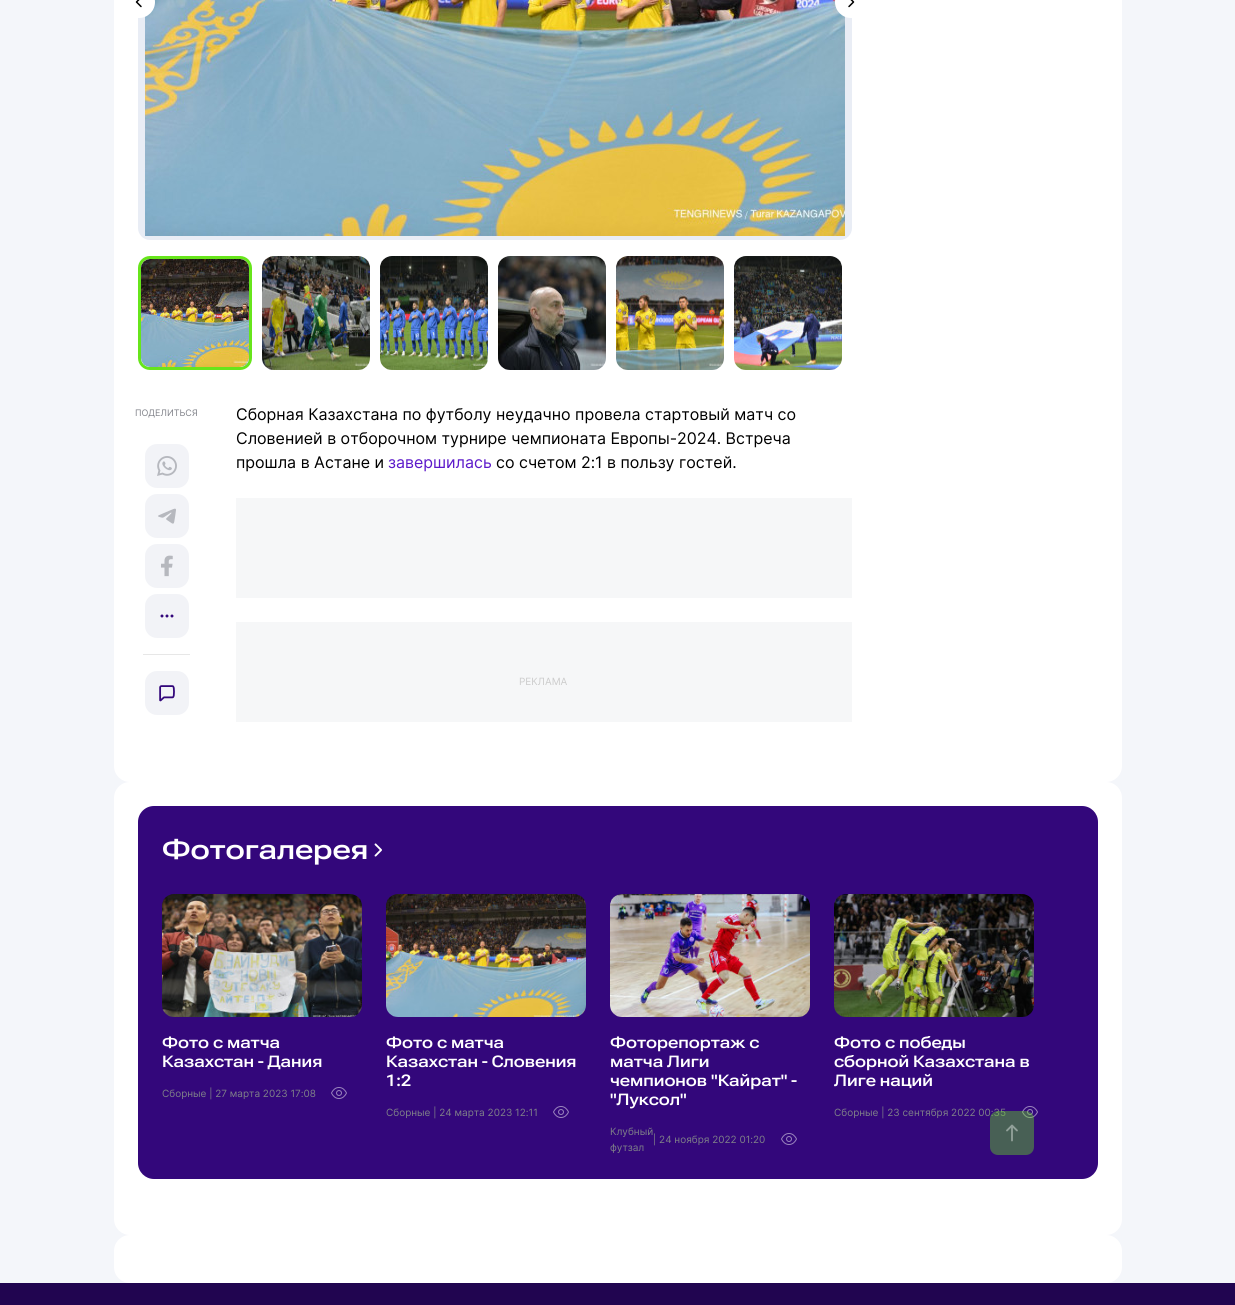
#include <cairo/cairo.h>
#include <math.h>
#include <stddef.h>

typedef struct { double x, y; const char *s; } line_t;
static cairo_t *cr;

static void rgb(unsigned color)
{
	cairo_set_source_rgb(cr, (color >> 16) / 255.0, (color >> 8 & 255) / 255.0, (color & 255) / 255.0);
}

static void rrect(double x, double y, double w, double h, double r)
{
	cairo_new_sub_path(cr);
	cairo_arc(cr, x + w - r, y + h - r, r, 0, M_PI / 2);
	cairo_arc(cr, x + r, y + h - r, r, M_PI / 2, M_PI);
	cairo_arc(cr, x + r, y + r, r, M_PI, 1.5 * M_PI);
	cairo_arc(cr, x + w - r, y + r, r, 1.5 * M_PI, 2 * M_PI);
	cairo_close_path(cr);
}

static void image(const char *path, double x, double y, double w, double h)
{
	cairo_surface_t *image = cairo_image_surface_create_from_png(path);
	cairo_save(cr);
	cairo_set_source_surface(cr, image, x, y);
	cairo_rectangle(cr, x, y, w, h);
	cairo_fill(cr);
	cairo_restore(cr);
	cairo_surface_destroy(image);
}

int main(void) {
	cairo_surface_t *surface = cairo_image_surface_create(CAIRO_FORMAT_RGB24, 1235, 1305);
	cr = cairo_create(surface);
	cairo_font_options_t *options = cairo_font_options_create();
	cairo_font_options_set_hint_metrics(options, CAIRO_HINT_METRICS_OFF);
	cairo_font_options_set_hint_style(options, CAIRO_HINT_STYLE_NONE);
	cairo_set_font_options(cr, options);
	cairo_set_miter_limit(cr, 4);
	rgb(0xf4f6fa);
	cairo_paint(cr);
	rgb(0xffffff);
	rrect(114, -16, 1008, 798, 16);
	cairo_fill(cr);
	rgb(0xe9edf5);
	rrect(138, -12, 714, 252, 12);
	cairo_fill(cr);
	image("img/2.png", 145, 0, 700, 236);
	image("img/1.png", 135, 0, 20, 18);
	image("img/3.png", 835, 0, 20, 18);
	rrect(139.5, 257.5, 111, 111, 10.5);
	rgb(0x67e51b);
	cairo_set_line_width(cr, 3);
	cairo_stroke(cr);
	image("img/4.png", 141, 259, 108, 108);
	image("img/5.png", 262, 256, 108, 114);
	image("img/6.png", 380, 256, 108, 114);
	image("img/7.png", 498, 256, 108, 114);
	image("img/8.png", 616, 256, 108, 114);
	image("img/9.png", 734, 256, 108, 114);
	image("img/10.png", 145, 444, 44, 44);
	image("img/11.png", 145, 494, 44, 44);
	image("img/12.png", 145, 544, 44, 44);
	image("img/13.png", 145, 594, 44, 44);
	rgb(0xe7e7e7);
	cairo_rectangle(cr, 143, 654, 47, 1);
	cairo_fill(cr);
	rgb(0xf2f3f7);
	rrect(145, 671, 44, 44, 12);
	cairo_fill(cr);
	image("img/14.png", 159, 685, 16, 17);
	rgb(0xf6f7f8);
	cairo_rectangle(cr, 236, 498, 616, 100);
	cairo_fill(cr);
	cairo_rectangle(cr, 236, 622, 616, 100);
	cairo_fill(cr);
	rgb(0xffffff);
	rrect(114, 782, 1008, 453, 16);
	cairo_fill(cr);
	rgb(0x33077b);
	rrect(138, 806, 960, 373, 16);
	cairo_fill(cr);
	image("img/15.png", 374, 843, 8, 14);
	image("img/16.png", 162, 894, 200, 123);
	image("img/17.png", 331, 1087, 16, 12);
	image("img/18.png", 386, 894, 200, 123);
	image("img/17.png", 553, 1106, 16, 12);
	image("img/19.png", 610, 894, 200, 123);
	image("img/17.png", 781, 1133, 16, 12);
	image("img/20.png", 834, 894, 200, 123);
	image("img/17.png", 1022, 1106, 16, 12);
	rgb(0x210550);
	cairo_rectangle(cr, 0, 1283, 1235, 22);
	cairo_fill(cr);
	rgb(0xffffff);
	rrect(114, 1235, 1008, 48, 16);
	cairo_fill(cr);
	cairo_select_font_face(cr, "Inter", CAIRO_FONT_SLANT_NORMAL, CAIRO_FONT_WEIGHT_NORMAL);
	cairo_set_font_size(cr, 9);
	rgb(0x7f8188);
	cairo_move_to(cr, 135, 416);
	cairo_show_text(cr, "ПОДЕЛИТЬСЯ");
	cairo_set_font_size(cr, 16);
	rgb(0x000000);
	{
		static const line_t items[] = {
			{236, 420, "Сборная Казахстана по футболу неудачно провела стартовый матч со"},
			{236, 444, "Словенией в отборочном турнире чемпионата Европы-2024. Встреча"},
			{236, 468, "прошла в Астане и"},
		};
		for (size_t i = 0; i < sizeof items / sizeof *items; i++) {
			cairo_move_to(cr, items[i].x, items[i].y);
			cairo_show_text(cr, items[i].s);
		}
	}
	rgb(0x5c19ca);
	cairo_move_to(cr, 388, 468);
	cairo_show_text(cr, "завершилась");
	rgb(0x000000);
	cairo_move_to(cr, 496, 468);
	cairo_show_text(cr, "со счетом 2:1 в пользу гостей.");
	cairo_set_font_size(cr, 10);
	rgb(0xcccccc);
	cairo_move_to(cr, 519, 685);
	cairo_show_text(cr, "РЕКЛАМА");
	cairo_select_font_face(cr, "Roboto Flex SemiBold", CAIRO_FONT_SLANT_NORMAL, CAIRO_FONT_WEIGHT_NORMAL);
	cairo_set_font_size(cr, 28);
	rgb(0xffffff);
	cairo_move_to(cr, 162, 859);
	cairo_show_text(cr, "Фотогалерея");
	cairo_select_font_face(cr, "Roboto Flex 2 SemiBold", CAIRO_FONT_SLANT_NORMAL, CAIRO_FONT_WEIGHT_NORMAL);
	cairo_set_font_size(cr, 16);
	cairo_move_to(cr, 162, 1048);
	cairo_show_text(cr, "Фото с матча");
	cairo_move_to(cr, 162, 1067);
	cairo_show_text(cr, "Казахстан - Дания");
	cairo_select_font_face(cr, "Inter", CAIRO_FONT_SLANT_NORMAL, CAIRO_FONT_WEIGHT_NORMAL);
	cairo_set_font_size(cr, 10);
	rgb(0x7f8188);
	cairo_move_to(cr, 162, 1097);
	cairo_show_text(cr, "Сборные | 27 марта 2023 17:08");
	cairo_select_font_face(cr, "Roboto Flex 2 SemiBold", CAIRO_FONT_SLANT_NORMAL, CAIRO_FONT_WEIGHT_NORMAL);
	cairo_set_font_size(cr, 16);
	rgb(0xffffff);
	{
		static const line_t items[] = {
			{386, 1048, "Фото с матча"},
			{386, 1067, "Казахстан - Словения"},
			{386, 1086, "1:2"},
		};
		for (size_t i = 0; i < sizeof items / sizeof *items; i++) {
			cairo_move_to(cr, items[i].x, items[i].y);
			cairo_show_text(cr, items[i].s);
		}
	}
	cairo_select_font_face(cr, "Inter", CAIRO_FONT_SLANT_NORMAL, CAIRO_FONT_WEIGHT_NORMAL);
	cairo_set_font_size(cr, 10);
	rgb(0x7f8188);
	cairo_move_to(cr, 386, 1116);
	cairo_show_text(cr, "Сборные | 24 марта 2023 12:11");
	cairo_select_font_face(cr, "Roboto Flex 2 SemiBold", CAIRO_FONT_SLANT_NORMAL, CAIRO_FONT_WEIGHT_NORMAL);
	cairo_set_font_size(cr, 16);
	rgb(0xffffff);
	{
		static const line_t items[] = {
			{610, 1048, "Фоторепортаж с"},
			{610, 1067, "матча Лиги"},
			{610, 1086, "чемпионов \"Кайрат\" -"},
			{610, 1105, "\"Луксол\""},
		};
		for (size_t i = 0; i < sizeof items / sizeof *items; i++) {
			cairo_move_to(cr, items[i].x, items[i].y);
			cairo_show_text(cr, items[i].s);
		}
	}
	cairo_select_font_face(cr, "Inter", CAIRO_FONT_SLANT_NORMAL, CAIRO_FONT_WEIGHT_NORMAL);
	cairo_set_font_size(cr, 10);
	rgb(0x7f8188);
	{
		static const line_t items[] = {
			{610, 1135, "Клубный"},
			{610, 1151, "футзал"},
			{653, 1143, "| 24 ноября 2022 01:20"},
		};
		for (size_t i = 0; i < sizeof items / sizeof *items; i++) {
			cairo_move_to(cr, items[i].x, items[i].y);
			cairo_show_text(cr, items[i].s);
		}
	}
	cairo_select_font_face(cr, "Roboto Flex 2 SemiBold", CAIRO_FONT_SLANT_NORMAL, CAIRO_FONT_WEIGHT_NORMAL);
	cairo_set_font_size(cr, 16);
	rgb(0xffffff);
	{
		static const line_t items[] = {
			{834, 1048, "Фото с победы"},
			{834, 1067, "сборной Казахстана в"},
			{834, 1086, "Лиге наций"},
		};
		for (size_t i = 0; i < sizeof items / sizeof *items; i++) {
			cairo_move_to(cr, items[i].x, items[i].y);
			cairo_show_text(cr, items[i].s);
		}
	}
	cairo_select_font_face(cr, "Inter", CAIRO_FONT_SLANT_NORMAL, CAIRO_FONT_WEIGHT_NORMAL);
	cairo_set_font_size(cr, 10);
	rgb(0x7f8188);
	cairo_move_to(cr, 834, 1116);
	cairo_show_text(cr, "Сборные | 23 сентября 2022 00:35");
	image("img/21.png", 990, 1111, 44, 44);
	cairo_surface_write_to_png(surface, "page.png");
	cairo_font_options_destroy(options);
	cairo_destroy(cr);
	cairo_surface_destroy(surface);
	return 0;
}
